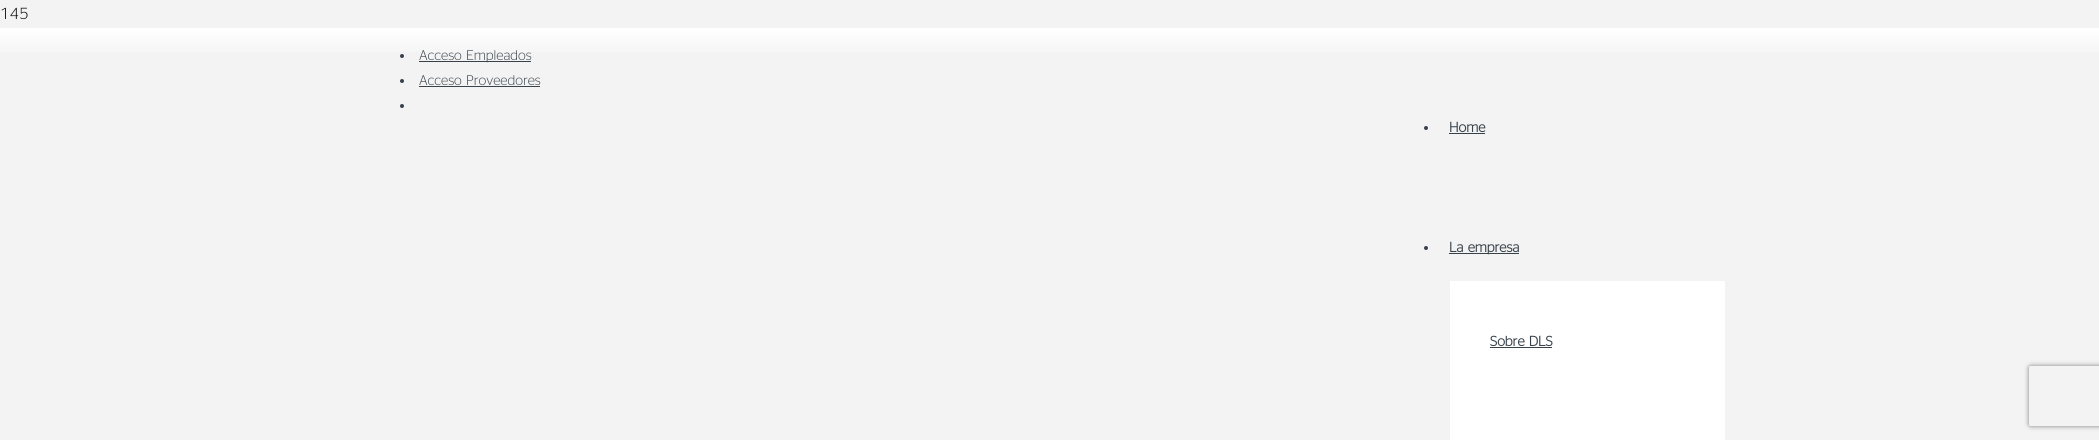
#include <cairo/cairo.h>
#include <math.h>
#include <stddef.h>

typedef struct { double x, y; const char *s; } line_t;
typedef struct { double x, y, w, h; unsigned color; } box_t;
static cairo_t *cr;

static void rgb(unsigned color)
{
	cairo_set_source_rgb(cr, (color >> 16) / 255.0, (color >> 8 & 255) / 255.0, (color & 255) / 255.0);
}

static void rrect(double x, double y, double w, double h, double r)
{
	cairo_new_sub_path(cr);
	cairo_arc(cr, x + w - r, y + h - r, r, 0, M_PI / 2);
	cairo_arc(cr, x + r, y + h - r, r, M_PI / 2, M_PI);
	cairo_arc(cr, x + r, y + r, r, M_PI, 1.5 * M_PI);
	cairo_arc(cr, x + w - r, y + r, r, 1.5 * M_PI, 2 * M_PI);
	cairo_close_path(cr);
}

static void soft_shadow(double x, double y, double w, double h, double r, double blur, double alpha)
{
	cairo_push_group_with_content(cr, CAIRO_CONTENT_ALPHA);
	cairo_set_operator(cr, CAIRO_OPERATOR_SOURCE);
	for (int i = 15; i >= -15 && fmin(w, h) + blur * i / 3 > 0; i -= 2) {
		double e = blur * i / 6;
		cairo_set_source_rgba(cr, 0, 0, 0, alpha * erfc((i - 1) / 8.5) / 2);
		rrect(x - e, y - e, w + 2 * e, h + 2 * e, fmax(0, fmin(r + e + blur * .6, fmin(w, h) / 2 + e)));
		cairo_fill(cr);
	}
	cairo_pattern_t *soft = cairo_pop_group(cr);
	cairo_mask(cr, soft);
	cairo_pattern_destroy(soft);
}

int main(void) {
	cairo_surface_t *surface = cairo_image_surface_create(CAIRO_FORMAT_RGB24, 2099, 440);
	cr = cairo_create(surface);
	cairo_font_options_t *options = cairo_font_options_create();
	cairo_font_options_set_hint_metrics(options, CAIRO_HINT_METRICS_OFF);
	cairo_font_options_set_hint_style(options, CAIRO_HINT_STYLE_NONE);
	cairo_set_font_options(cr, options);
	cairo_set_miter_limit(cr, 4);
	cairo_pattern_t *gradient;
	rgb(0xf3f3f3);
	cairo_paint(cr);
	gradient = cairo_pattern_create_linear(1050, 53, 1050, 28);
	cairo_pattern_add_color_stop_rgba(gradient, 0, 0.961, 0.961, 0.961, 1);
	cairo_pattern_add_color_stop_rgba(gradient, 1, 1, 1, 1, 1);
	cairo_set_source(cr, gradient);
	cairo_pattern_destroy(gradient);
	cairo_rectangle(cr, 0, 28, 2099, 24);
	cairo_fill(cr);
	rgb(0x38424b);
	cairo_arc(cr, 402, 56, 2, 0, 2 * M_PI);
	cairo_fill(cr);
	cairo_rectangle(cr, 419, 61, 112, 1);
	cairo_fill(cr);
	cairo_arc(cr, 402, 81, 2, 0, 2 * M_PI);
	cairo_fill(cr);
	cairo_rectangle(cr, 419, 86, 121, 1);
	cairo_fill(cr);
	cairo_arc(cr, 402, 106, 2, 0, 2 * M_PI);
	cairo_fill(cr);
	cairo_arc(cr, 1426, 128, 2, 0, 2 * M_PI);
	cairo_fill(cr);
	cairo_rectangle(cr, 1449, 133, 36, 1);
	cairo_fill(cr);
	cairo_arc(cr, 1426, 248, 2, 0, 2 * M_PI);
	cairo_fill(cr);
	{
		static const box_t items[] = {
			{1449, 253, 70, 1, 0x38424b},
			{1450, 281, 275, 159, 0xffffff},
			{1490, 347, 62, 1, 0x38424b},
		};
		for (size_t i = 0; i < sizeof items / sizeof *items; i++) {
			rgb(items[i].color);
			cairo_rectangle(cr, items[i].x, items[i].y, items[i].w, items[i].h);
			cairo_fill(cr);
		}
	}
	cairo_save(cr);
	cairo_set_fill_rule(cr, CAIRO_FILL_RULE_EVEN_ODD);
	cairo_new_path(cr);
	cairo_move_to(cr, 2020, 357);
	cairo_line_to(cr, 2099, 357);
	cairo_line_to(cr, 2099, 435);
	cairo_line_to(cr, 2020, 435);
	cairo_close_path(cr);
	cairo_move_to(cr, 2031, 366);
	cairo_line_to(cr, 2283, 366);
	cairo_curve_to(cr, 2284, 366, 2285, 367, 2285, 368);
	cairo_line_to(cr, 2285, 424);
	cairo_curve_to(cr, 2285, 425, 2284, 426, 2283, 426);
	cairo_line_to(cr, 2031, 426);
	cairo_curve_to(cr, 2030, 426, 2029, 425, 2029, 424);
	cairo_line_to(cr, 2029, 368);
	cairo_curve_to(cr, 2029, 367, 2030, 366, 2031, 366);
	cairo_close_path(cr);
	cairo_clip(cr);
	rgb(0x808080);
	soft_shadow(2029, 366, 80, 60, 2, 2.5, 1);
	cairo_restore(cr);
	cairo_select_font_face(cr, "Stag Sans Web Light", CAIRO_FONT_SLANT_NORMAL, CAIRO_FONT_WEIGHT_NORMAL);
	cairo_set_font_size(cr, 16);
	rgb(0x000000);
	cairo_move_to(cr, 0, 19);
	cairo_show_text(cr, "145");
	cairo_set_font_size(cr, 14);
	rgb(0x38424b);
	cairo_move_to(cr, 419, 60);
	cairo_show_text(cr, "Acceso Empleados");
	cairo_move_to(cr, 419, 85);
	cairo_show_text(cr, "Acceso Proveedores");
	cairo_select_font_face(cr, "Stag Sans Web", CAIRO_FONT_SLANT_NORMAL, CAIRO_FONT_WEIGHT_BOLD);
	{
		static const line_t items[] = {
			{1449, 132, "Home"},
			{1449, 252, "La empresa"},
			{1490, 346, "Sobre DLS"},
		};
		for (size_t i = 0; i < sizeof items / sizeof *items; i++) {
			cairo_move_to(cr, items[i].x, items[i].y);
			cairo_show_text(cr, items[i].s);
		}
	}
	cairo_surface_write_to_png(surface, "page.png");
	cairo_font_options_destroy(options);
	cairo_destroy(cr);
	cairo_surface_destroy(surface);
	return 0;
}
